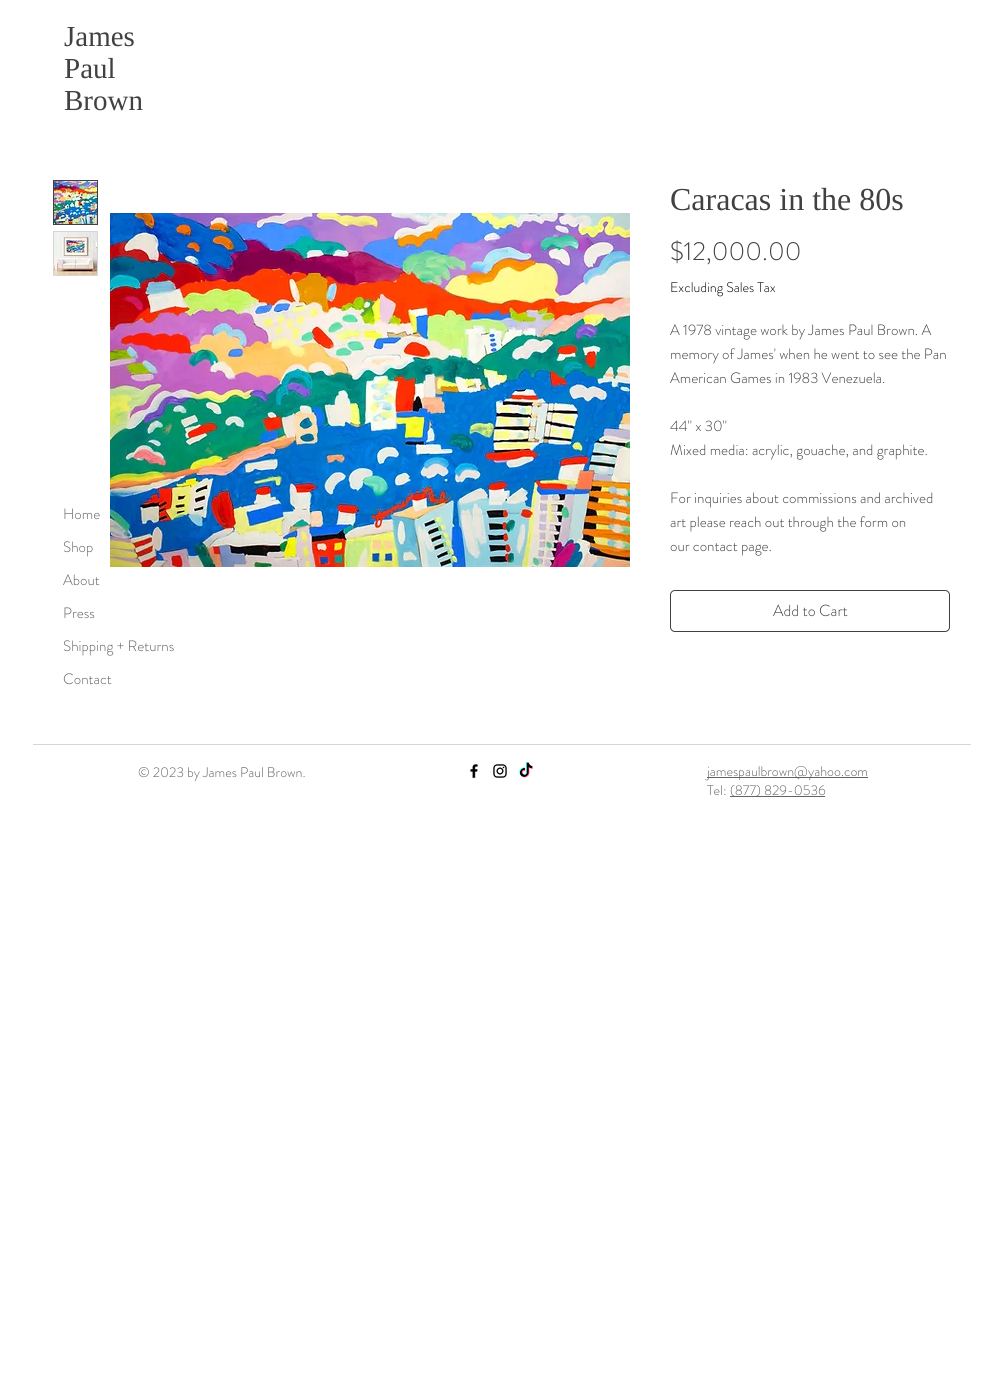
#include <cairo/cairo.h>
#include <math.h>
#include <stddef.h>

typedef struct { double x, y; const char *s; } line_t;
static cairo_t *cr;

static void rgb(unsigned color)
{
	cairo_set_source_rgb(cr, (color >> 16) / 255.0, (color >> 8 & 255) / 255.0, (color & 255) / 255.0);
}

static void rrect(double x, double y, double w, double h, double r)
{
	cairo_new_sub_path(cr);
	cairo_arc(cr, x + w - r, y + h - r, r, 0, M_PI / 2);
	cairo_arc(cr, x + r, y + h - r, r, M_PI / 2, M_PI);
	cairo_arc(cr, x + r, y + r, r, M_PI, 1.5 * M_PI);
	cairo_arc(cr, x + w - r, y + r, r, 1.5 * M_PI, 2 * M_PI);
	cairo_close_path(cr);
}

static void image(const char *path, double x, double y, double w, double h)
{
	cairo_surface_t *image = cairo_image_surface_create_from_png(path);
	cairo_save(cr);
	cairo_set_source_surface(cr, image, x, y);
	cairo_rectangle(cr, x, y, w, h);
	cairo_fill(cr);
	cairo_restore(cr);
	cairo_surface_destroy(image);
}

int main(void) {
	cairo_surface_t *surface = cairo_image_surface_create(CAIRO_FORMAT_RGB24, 1000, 1393);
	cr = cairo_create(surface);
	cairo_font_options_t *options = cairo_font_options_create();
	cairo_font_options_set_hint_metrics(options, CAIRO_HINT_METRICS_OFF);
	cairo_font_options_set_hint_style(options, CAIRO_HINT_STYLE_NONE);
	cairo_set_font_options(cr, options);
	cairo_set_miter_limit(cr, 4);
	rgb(0xffffff);
	cairo_paint(cr);
	cairo_rectangle(cr, 53.5, 180.5, 44, 44);
	rgb(0x414141);
	cairo_set_line_width(cr, 1);
	cairo_stroke(cr);
	image("img/1.png", 54, 181, 43, 43);
	cairo_rectangle(cr, 53.5, 231.5, 44, 44);
	rgb(0xd6d6d4);
	cairo_stroke(cr);
	image("img/2.png", 54, 232, 43, 43);
	image("img/3.png", 110, 213, 520, 354);
	rrect(670.5, 590.5, 279, 41, 4.5);
	rgb(0x414141);
	cairo_stroke(cr);
	rgb(0xd6d6d4);
	cairo_rectangle(cr, 33, 744, 938, 1);
	cairo_fill(cr);
	image("img/4.png", 470, 764, 8, 14);
	image("img/5.png", 493, 764, 14, 14);
	image("img/6.png", 519, 762, 14, 16);
	rgb(0x636363);
	cairo_rectangle(cr, 707, 777, 161, 1);
	cairo_fill(cr);
	cairo_rectangle(cr, 730, 796, 95, 1);
	cairo_fill(cr);
	cairo_select_font_face(cr, "Liberation Serif", CAIRO_FONT_SLANT_NORMAL, CAIRO_FONT_WEIGHT_NORMAL);
	cairo_set_font_size(cr, 29);
	rgb(0x414141);
	{
		static const line_t items[] = {
			{64, 46, "James"},
			{64, 78, "Paul"},
			{64, 110, "Brown"},
		};
		for (size_t i = 0; i < sizeof items / sizeof *items; i++) {
			cairo_move_to(cr, items[i].x, items[i].y);
			cairo_show_text(cr, items[i].s);
		}
	}
	cairo_select_font_face(cr, "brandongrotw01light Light", CAIRO_FONT_SLANT_NORMAL, CAIRO_FONT_WEIGHT_NORMAL);
	cairo_set_font_size(cr, 15);
	rgb(0x636363);
	{
		static const line_t items[] = {
			{63, 519, "Home"},
			{63, 552, "Shop"},
			{63, 585, "About"},
			{63, 618, "Press"},
			{63, 651, "Shipping + Returns"},
			{63, 684, "Contact"},
		};
		for (size_t i = 0; i < sizeof items / sizeof *items; i++) {
			cairo_move_to(cr, items[i].x, items[i].y);
			cairo_show_text(cr, items[i].s);
		}
	}
	cairo_select_font_face(cr, "Liberation Serif", CAIRO_FONT_SLANT_NORMAL, CAIRO_FONT_WEIGHT_NORMAL);
	cairo_set_font_size(cr, 32);
	rgb(0x414141);
	cairo_move_to(cr, 670, 210);
	cairo_show_text(cr, "Caracas in the 80s");
	cairo_select_font_face(cr, "brandongrotw01light Light", CAIRO_FONT_SLANT_NORMAL, CAIRO_FONT_WEIGHT_NORMAL);
	cairo_set_font_size(cr, 26);
	cairo_move_to(cr, 670, 260);
	cairo_show_text(cr, "$12,000.00");
	cairo_set_font_size(cr, 14);
	rgb(0x000000);
	cairo_move_to(cr, 670, 292);
	cairo_show_text(cr, "Excluding Sales Tax");
	cairo_set_font_size(cr, 15);
	rgb(0x414141);
	{
		static const line_t items[] = {
			{670, 335, "A 1978 vintage work by James Paul Brown. A"},
			{670, 359, "memory of James' when he went to see the Pan"},
			{670, 383, "American Games in 1983 Venezuela."},
			{670, 431, "44\" x 30\""},
			{670, 455, "Mixed media: acrylic, gouache, and graphite."},
			{670, 503, "For inquiries about commissions and archived"},
			{670, 527, "art please reach out through the form on"},
			{670, 551, "our contact page."},
		};
		for (size_t i = 0; i < sizeof items / sizeof *items; i++) {
			cairo_move_to(cr, items[i].x, items[i].y);
			cairo_show_text(cr, items[i].s);
		}
	}
	cairo_set_font_size(cr, 16);
	cairo_move_to(cr, 773, 616);
	cairo_show_text(cr, "Add to Cart");
	cairo_set_font_size(cr, 14);
	rgb(0x636363);
	{
		static const line_t items[] = {
			{138, 777, "© 2023 by James Paul Brown."},
			{707, 776, "jamespaulbrown@yahoo.com"},
			{707, 795, "Tel:"},
			{730, 795, "(877) 829-0536"},
		};
		for (size_t i = 0; i < sizeof items / sizeof *items; i++) {
			cairo_move_to(cr, items[i].x, items[i].y);
			cairo_show_text(cr, items[i].s);
		}
	}
	cairo_surface_write_to_png(surface, "page.png");
	cairo_font_options_destroy(options);
	cairo_destroy(cr);
	cairo_surface_destroy(surface);
	return 0;
}
